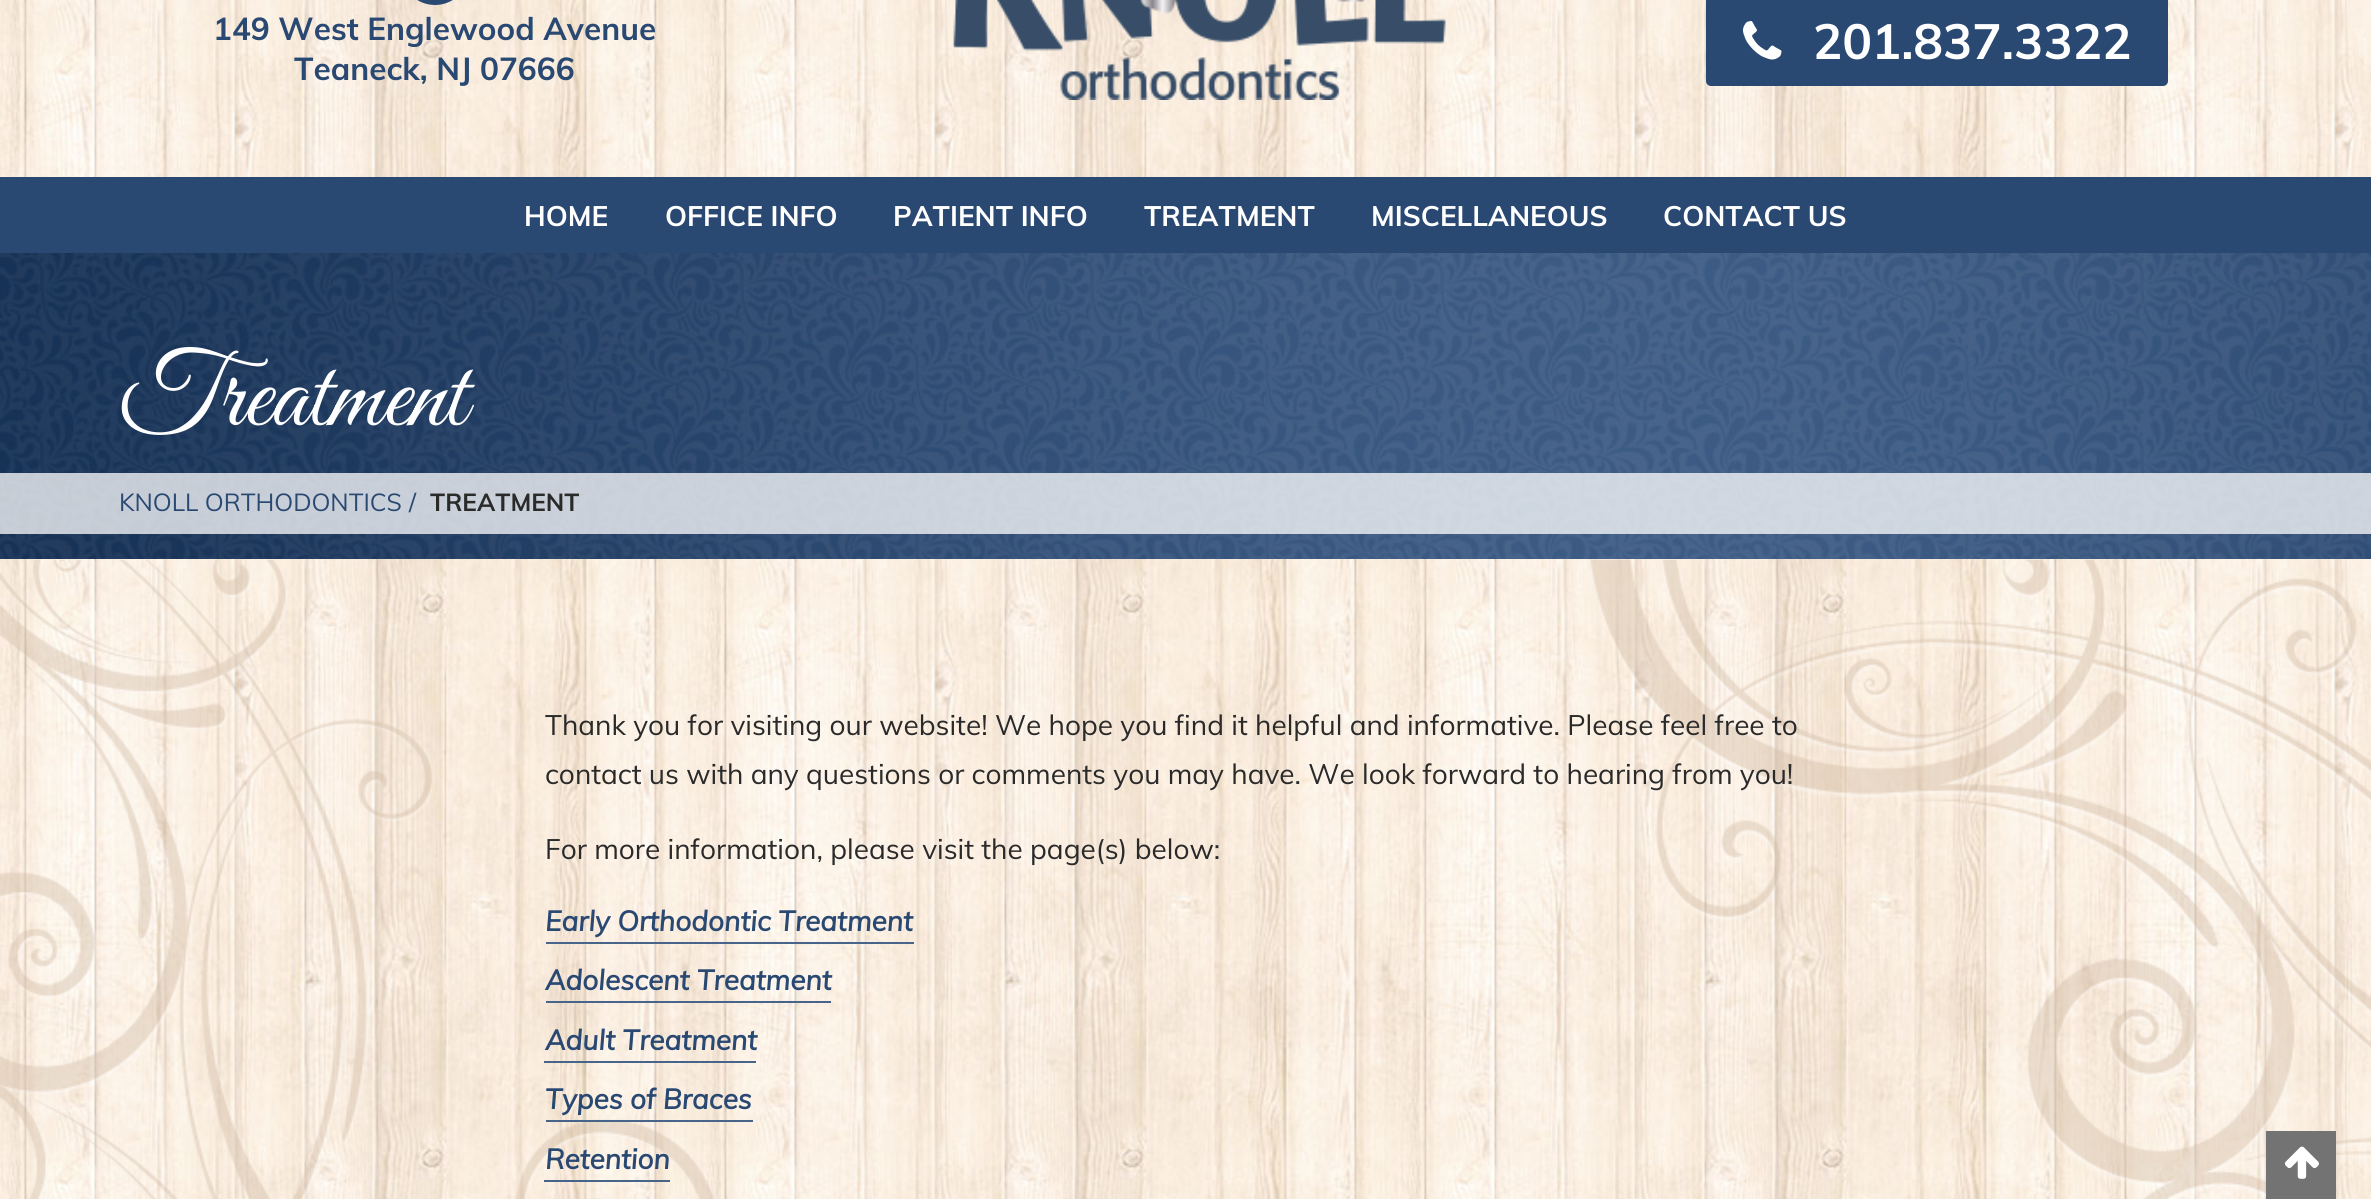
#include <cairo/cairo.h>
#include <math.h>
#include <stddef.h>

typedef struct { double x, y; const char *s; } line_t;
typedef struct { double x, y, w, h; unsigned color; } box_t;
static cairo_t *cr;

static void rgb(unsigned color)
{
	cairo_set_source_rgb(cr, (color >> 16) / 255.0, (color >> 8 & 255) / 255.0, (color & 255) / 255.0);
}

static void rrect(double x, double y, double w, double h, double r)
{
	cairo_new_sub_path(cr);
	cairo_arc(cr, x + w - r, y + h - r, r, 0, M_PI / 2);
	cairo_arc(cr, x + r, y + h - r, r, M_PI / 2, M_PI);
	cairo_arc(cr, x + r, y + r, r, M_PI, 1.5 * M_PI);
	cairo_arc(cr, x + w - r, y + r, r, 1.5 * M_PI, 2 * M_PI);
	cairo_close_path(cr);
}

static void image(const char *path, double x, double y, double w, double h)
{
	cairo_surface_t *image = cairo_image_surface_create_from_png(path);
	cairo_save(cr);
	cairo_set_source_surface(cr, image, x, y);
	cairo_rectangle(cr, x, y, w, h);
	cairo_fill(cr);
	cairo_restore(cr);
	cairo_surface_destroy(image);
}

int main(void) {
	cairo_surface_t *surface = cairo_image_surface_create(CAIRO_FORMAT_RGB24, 2371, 1199);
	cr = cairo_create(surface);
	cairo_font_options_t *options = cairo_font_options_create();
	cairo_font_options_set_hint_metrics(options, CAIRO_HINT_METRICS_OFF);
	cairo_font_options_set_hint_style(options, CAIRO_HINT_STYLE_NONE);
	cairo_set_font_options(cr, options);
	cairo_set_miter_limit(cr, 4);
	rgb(0xffffff);
	cairo_paint(cr);
	image("img/1.png", 0, 0, 2371, 177);
	rgb(0x294872);
	rrect(401, -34, 68, 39, 34);
	cairo_fill(cr);
	image("img/2.png", 953, 0, 493, 100);
	rrect(1706, -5, 462, 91, 5);
	cairo_fill(cr);
	image("img/3.png", 1743, 21, 39, 39);
	cairo_rectangle(cr, 0, 177, 2371, 76);
	cairo_fill(cr);
	image("img/4.png", 0, 253, 2371, 306);
	cairo_set_source_rgba(cr, 1, 1, 1, 0.75);
	cairo_rectangle(cr, 0, 473, 2371, 61);
	cairo_fill(cr);
	image("img/5.png", 0, 559, 2371, 640);
	image("img/6.png", 0, 559, 2371, 640);
	{
		static const box_t items[] = {
			{546, 942, 368, 2, 0x47648b},
			{546, 1001, 285, 2, 0x47648b},
			{544, 1061, 212, 2, 0x47648b},
			{546, 1120, 207, 2, 0x47648b},
			{544, 1180, 126, 2, 0x47648b},
			{2266, 1131, 70, 68, 0x737373},
		};
		for (size_t i = 0; i < sizeof items / sizeof *items; i++) {
			rgb(items[i].color);
			cairo_rectangle(cr, items[i].x, items[i].y, items[i].w, items[i].h);
			cairo_fill(cr);
		}
	}
	image("img/7.png", 2284, 1146, 35, 33);
	cairo_select_font_face(cr, "Muli", CAIRO_FONT_SLANT_NORMAL, CAIRO_FONT_WEIGHT_BOLD);
	cairo_set_font_size(cr, 31.5);
	rgb(0x294872);
	cairo_move_to(cr, 213, 40);
	cairo_show_text(cr, "149 West Englewood Avenue");
	cairo_move_to(cr, 294, 80);
	cairo_show_text(cr, "Teaneck, NJ 07666");
	cairo_set_font_size(cr, 49);
	rgb(0xffffff);
	cairo_move_to(cr, 1813, 59);
	cairo_show_text(cr, "201.837.3322");
	cairo_set_font_size(cr, 28);
	{
		static const line_t items[] = {
			{524, 226, "HOME"},
			{665, 226, "OFFICE INFO"},
			{893, 226, "PATIENT INFO"},
			{1144, 226, "TREATMENT"},
			{1371, 226, "MISCELLANEOUS"},
			{1663, 226, "CONTACT US"},
		};
		for (size_t i = 0; i < sizeof items / sizeof *items; i++) {
			cairo_move_to(cr, items[i].x, items[i].y);
			cairo_show_text(cr, items[i].s);
		}
	}
	cairo_select_font_face(cr, "Great Vibes", CAIRO_FONT_SLANT_NORMAL, CAIRO_FONT_WEIGHT_NORMAL);
	cairo_set_font_size(cr, 105);
	cairo_move_to(cr, 119, 425);
	cairo_show_text(cr, "Treatment");
	cairo_select_font_face(cr, "Muli", CAIRO_FONT_SLANT_NORMAL, CAIRO_FONT_WEIGHT_NORMAL);
	cairo_set_font_size(cr, 24.5);
	rgb(0x294872);
	cairo_move_to(cr, 119, 511);
	cairo_show_text(cr, "KNOLL ORTHODONTICS");
	cairo_move_to(cr, 409, 511);
	cairo_show_text(cr, "/");
	cairo_select_font_face(cr, "Muli", CAIRO_FONT_SLANT_NORMAL, CAIRO_FONT_WEIGHT_BOLD);
	rgb(0x2a2a2a);
	cairo_move_to(cr, 430, 511);
	cairo_show_text(cr, "TREATMENT");
	cairo_select_font_face(cr, "Muli", CAIRO_FONT_SLANT_NORMAL, CAIRO_FONT_WEIGHT_NORMAL);
	cairo_set_font_size(cr, 28);
	{
		static const line_t items[] = {
			{545, 735, "Thank you for visiting our website! We hope you find it helpful and informative. Please feel free to"},
			{545, 784, "contact us with any questions or comments you may have. We look forward to hearing from you!"},
			{545, 859, "For more information, please visit the page(s) below:"},
		};
		for (size_t i = 0; i < sizeof items / sizeof *items; i++) {
			cairo_move_to(cr, items[i].x, items[i].y);
			cairo_show_text(cr, items[i].s);
		}
	}
	cairo_select_font_face(cr, "Muli", CAIRO_FONT_SLANT_ITALIC, CAIRO_FONT_WEIGHT_BOLD);
	rgb(0x294872);
	{
		static const line_t items[] = {
			{545, 931, "Early Orthodontic Treatment"},
			{545, 990, "Adolescent Treatment"},
			{545, 1050, "Adult Treatment"},
			{545, 1109, "Types of Braces"},
			{545, 1169, "Retention"},
		};
		for (size_t i = 0; i < sizeof items / sizeof *items; i++) {
			cairo_move_to(cr, items[i].x, items[i].y);
			cairo_show_text(cr, items[i].s);
		}
	}
	cairo_surface_write_to_png(surface, "page.png");
	cairo_font_options_destroy(options);
	cairo_destroy(cr);
	cairo_surface_destroy(surface);
	return 0;
}
